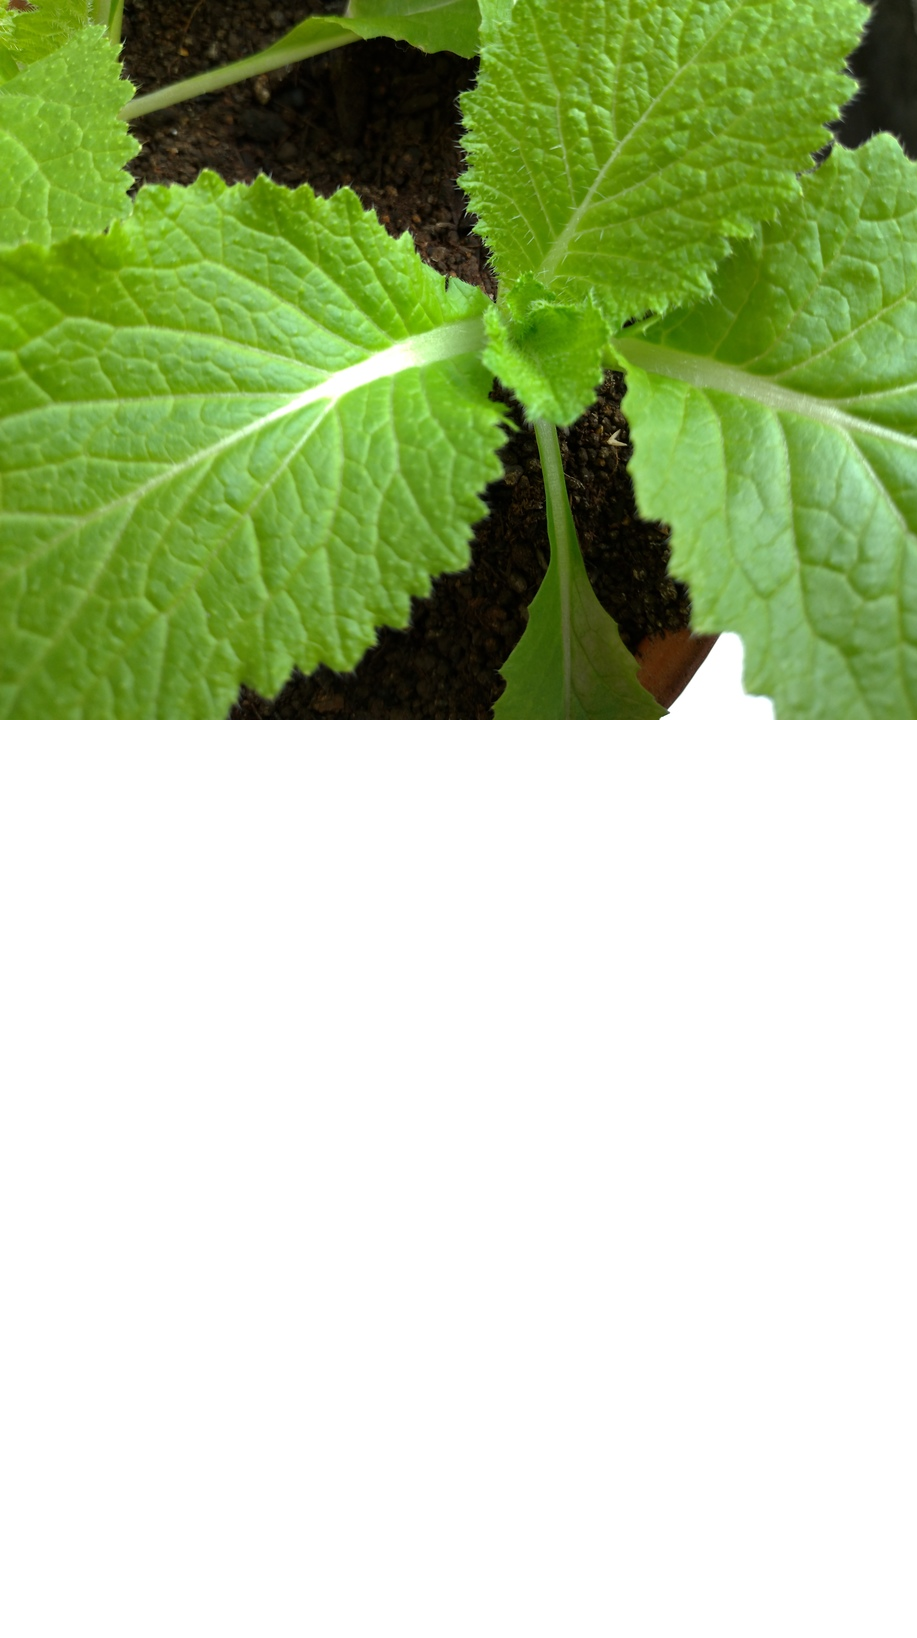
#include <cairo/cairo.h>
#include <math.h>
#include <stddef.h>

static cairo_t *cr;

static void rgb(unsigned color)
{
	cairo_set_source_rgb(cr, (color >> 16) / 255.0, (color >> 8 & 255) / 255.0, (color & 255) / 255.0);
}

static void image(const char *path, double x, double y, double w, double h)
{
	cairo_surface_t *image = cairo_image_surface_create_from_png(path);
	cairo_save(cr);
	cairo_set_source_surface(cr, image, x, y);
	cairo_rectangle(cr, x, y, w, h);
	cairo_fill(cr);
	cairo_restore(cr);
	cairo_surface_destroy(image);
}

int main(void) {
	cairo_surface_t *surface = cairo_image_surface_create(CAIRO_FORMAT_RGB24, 917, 1638);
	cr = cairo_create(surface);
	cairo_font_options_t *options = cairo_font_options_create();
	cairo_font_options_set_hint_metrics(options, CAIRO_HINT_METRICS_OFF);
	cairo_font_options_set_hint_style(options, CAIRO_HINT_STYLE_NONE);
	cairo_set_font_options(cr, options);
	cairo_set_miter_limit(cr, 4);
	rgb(0xffffff);
	cairo_paint(cr);
	image("img/1.png", 0, 0, 917, 720);
	cairo_surface_write_to_png(surface, "page.png");
	cairo_font_options_destroy(options);
	cairo_destroy(cr);
	cairo_surface_destroy(surface);
	return 0;
}
